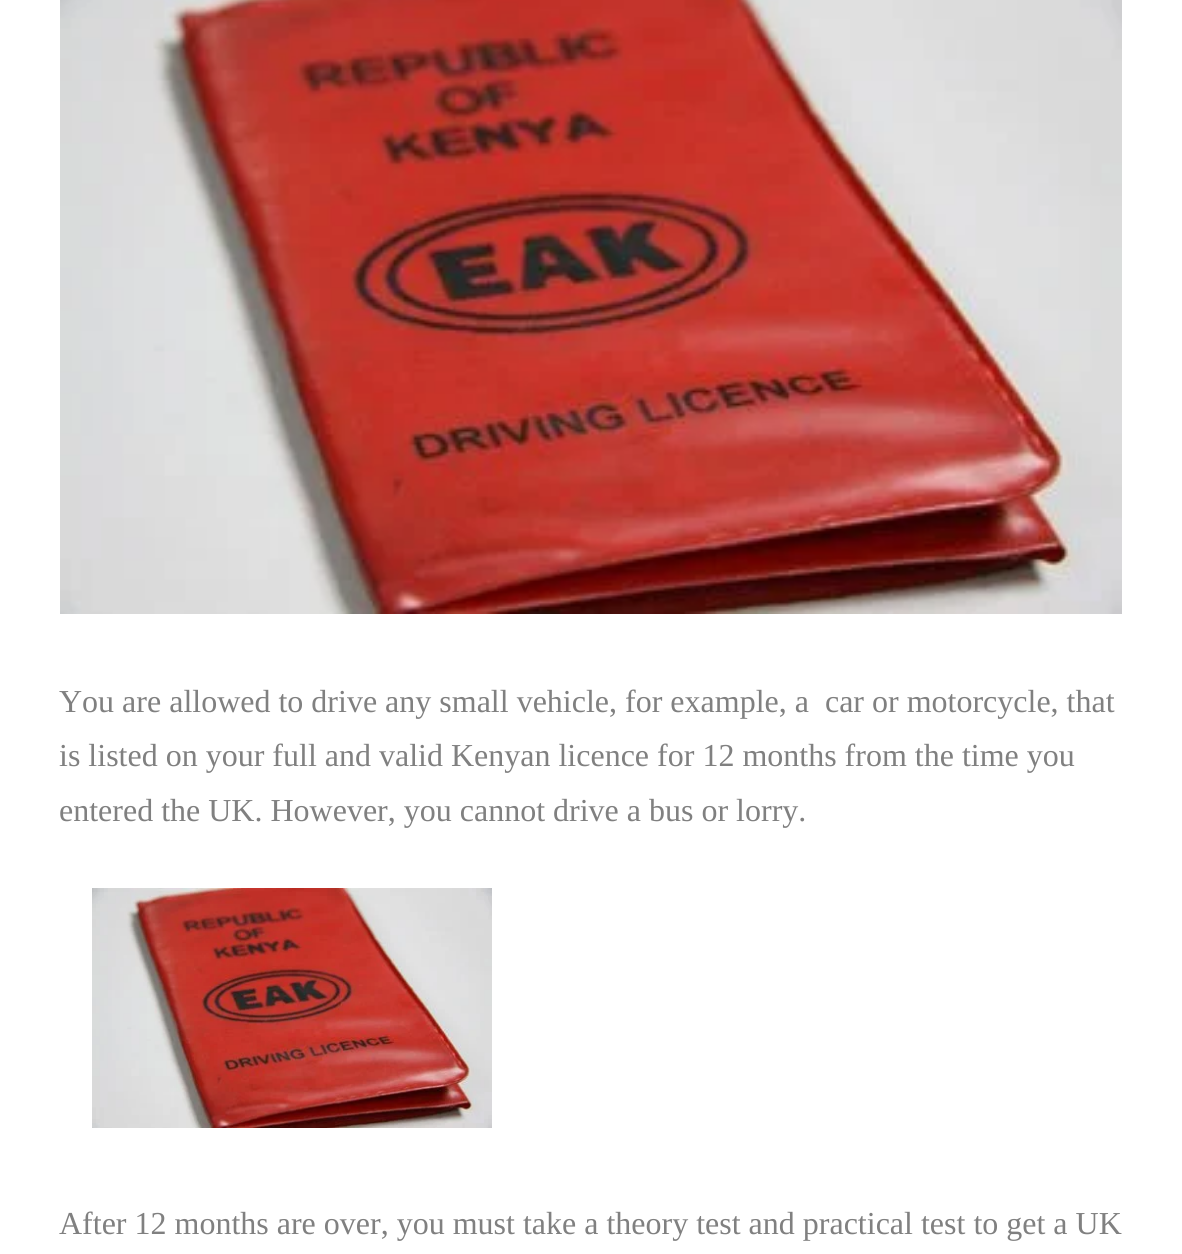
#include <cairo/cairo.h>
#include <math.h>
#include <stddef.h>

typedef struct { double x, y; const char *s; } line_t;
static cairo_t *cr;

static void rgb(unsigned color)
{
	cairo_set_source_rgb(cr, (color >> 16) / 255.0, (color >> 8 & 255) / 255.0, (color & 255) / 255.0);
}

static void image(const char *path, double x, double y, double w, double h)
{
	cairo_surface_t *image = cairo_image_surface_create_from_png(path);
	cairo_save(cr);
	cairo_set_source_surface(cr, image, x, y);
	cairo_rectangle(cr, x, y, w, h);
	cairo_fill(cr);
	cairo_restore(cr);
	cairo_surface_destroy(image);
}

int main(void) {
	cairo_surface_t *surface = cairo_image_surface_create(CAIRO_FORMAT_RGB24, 1182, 1254);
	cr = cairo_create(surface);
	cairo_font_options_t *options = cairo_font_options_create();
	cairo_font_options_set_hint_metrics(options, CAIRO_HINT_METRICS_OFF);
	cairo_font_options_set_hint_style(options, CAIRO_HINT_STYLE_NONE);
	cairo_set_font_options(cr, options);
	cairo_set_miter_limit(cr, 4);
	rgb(0xffffff);
	cairo_paint(cr);
	image("img/1.png", 60, 0, 1062, 614);
	image("img/2.png", 92, 888, 400, 240);
	cairo_select_font_face(cr, "Liberation Serif", CAIRO_FONT_SLANT_NORMAL, CAIRO_FONT_WEIGHT_NORMAL);
	cairo_set_font_size(cr, 32);
	rgb(0x808080);
	{
		static const line_t items[] = {
			{59, 712, "You are allowed to drive any small vehicle, for example, a  car or motorcycle, that"},
			{59, 766, "is listed on your full and valid Kenyan licence for 12 months from the time you"},
			{59, 821, "entered the UK. However, you cannot drive a bus or lorry."},
			{59, 1234, "After 12 months are over, you must take a theory test and practical test to get a UK"},
		};
		for (size_t i = 0; i < sizeof items / sizeof *items; i++) {
			cairo_move_to(cr, items[i].x, items[i].y);
			cairo_show_text(cr, items[i].s);
		}
	}
	cairo_surface_write_to_png(surface, "page.png");
	cairo_font_options_destroy(options);
	cairo_destroy(cr);
	cairo_surface_destroy(surface);
	return 0;
}
